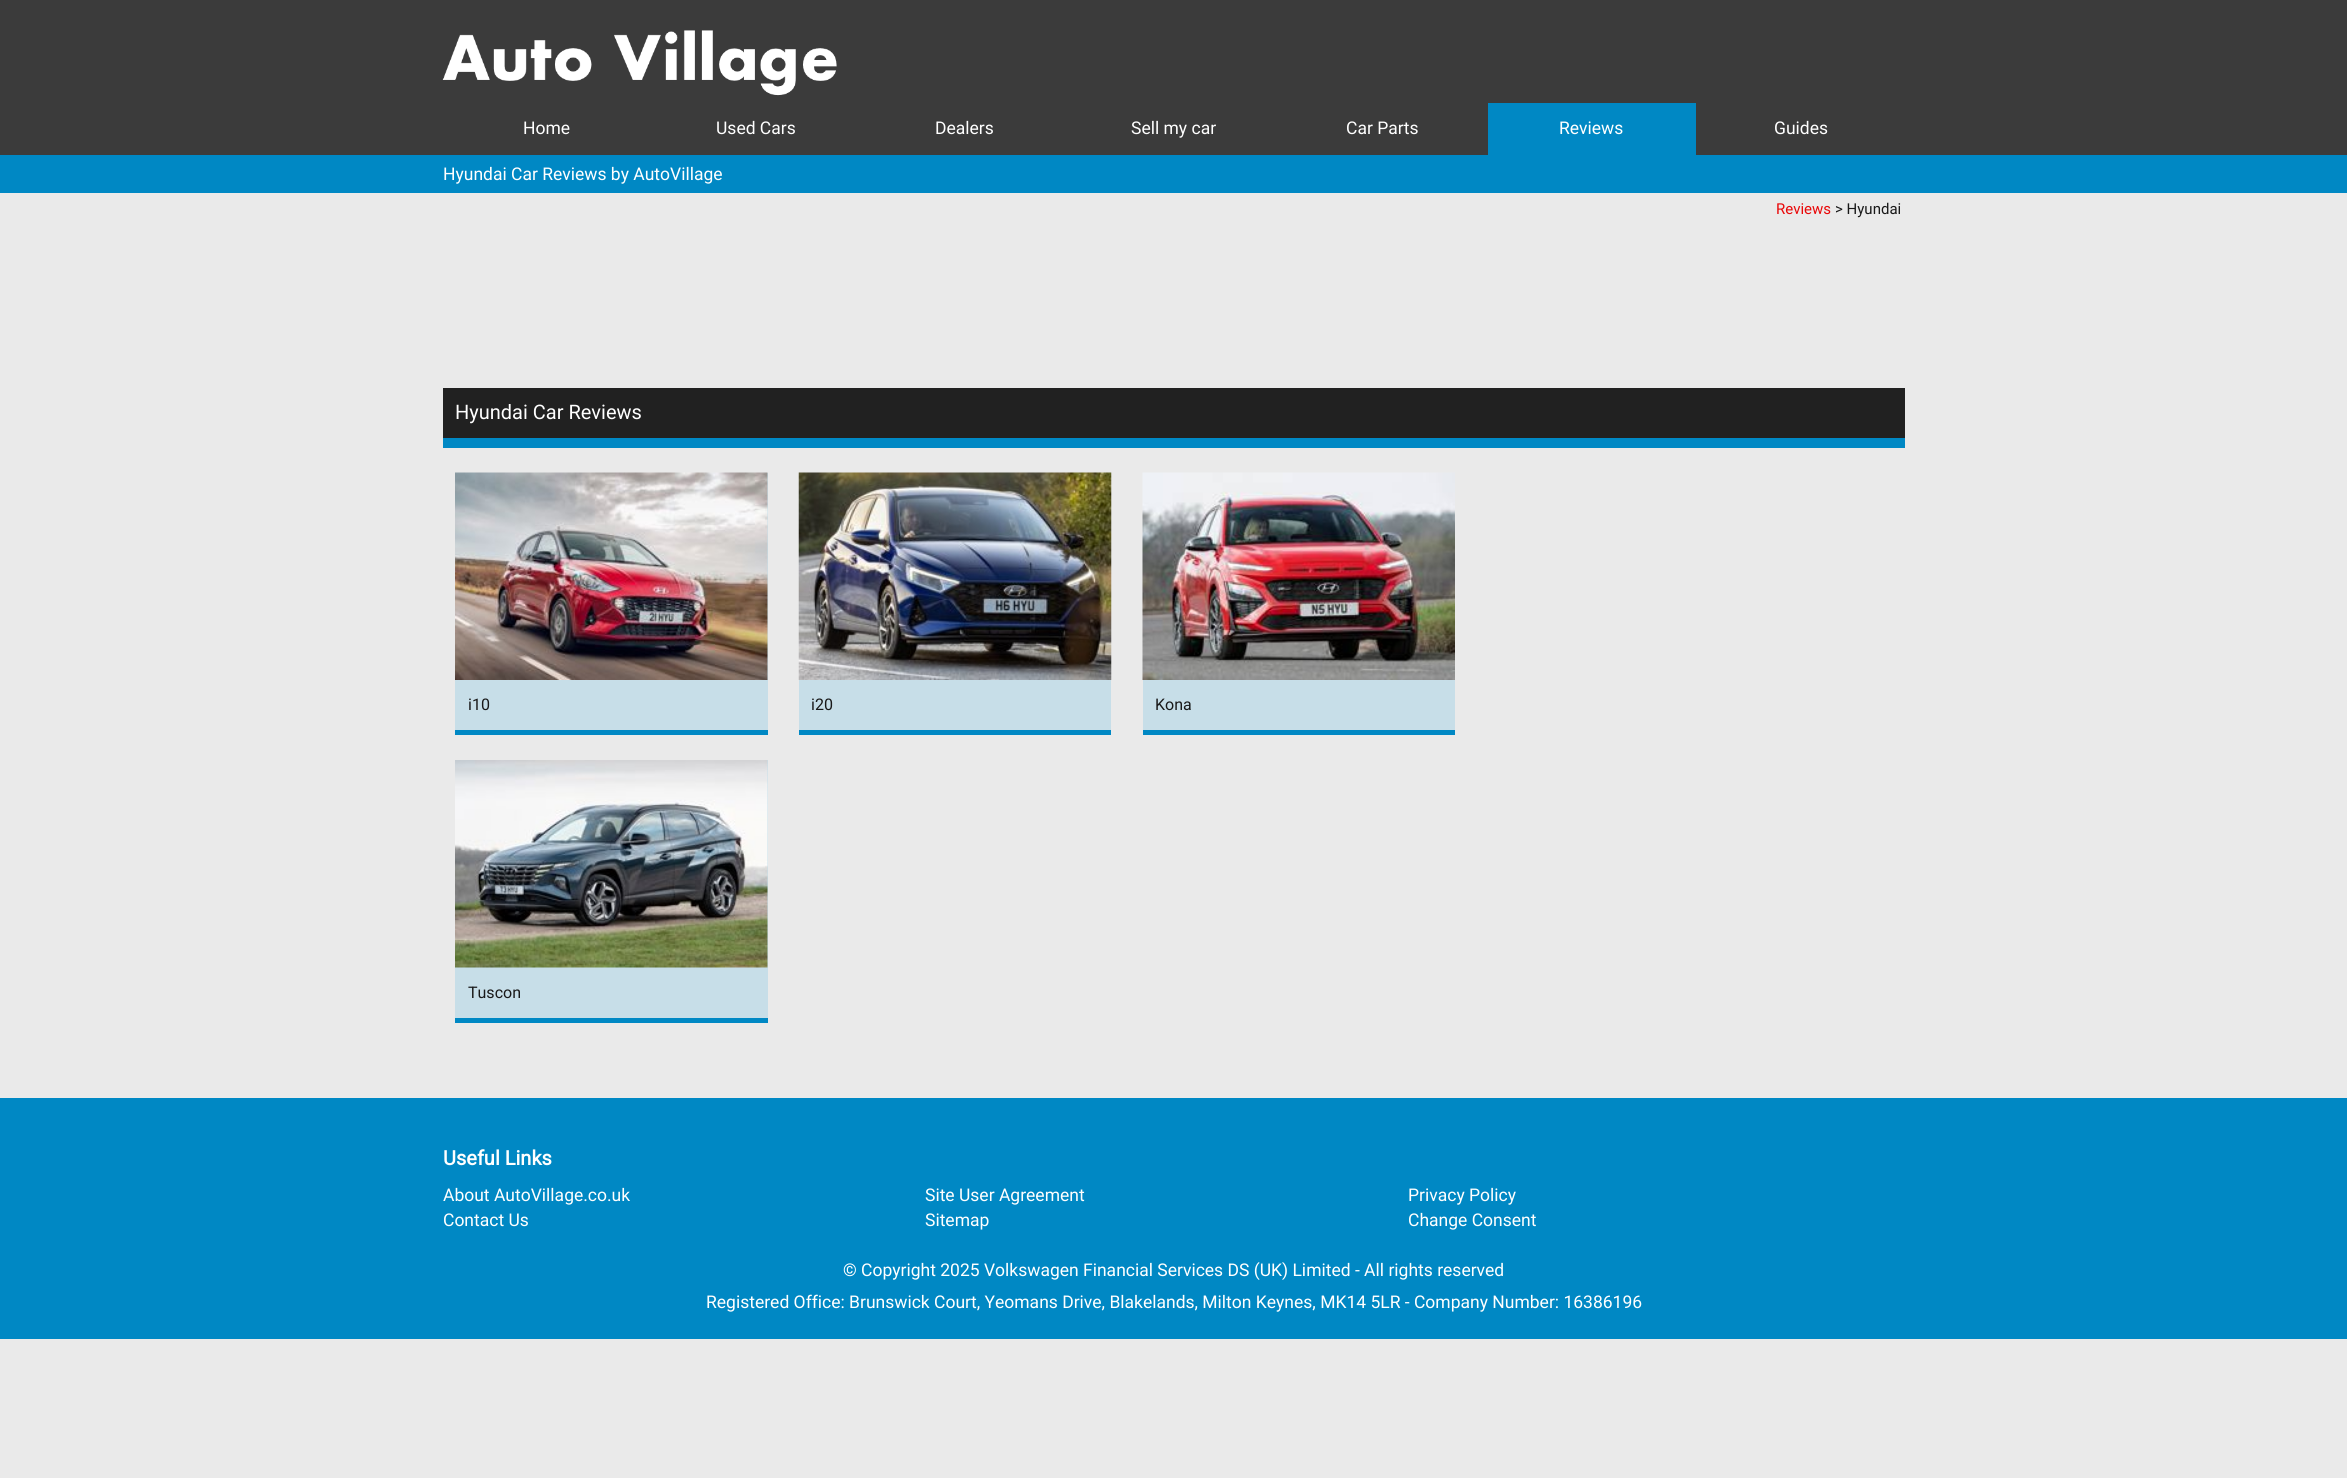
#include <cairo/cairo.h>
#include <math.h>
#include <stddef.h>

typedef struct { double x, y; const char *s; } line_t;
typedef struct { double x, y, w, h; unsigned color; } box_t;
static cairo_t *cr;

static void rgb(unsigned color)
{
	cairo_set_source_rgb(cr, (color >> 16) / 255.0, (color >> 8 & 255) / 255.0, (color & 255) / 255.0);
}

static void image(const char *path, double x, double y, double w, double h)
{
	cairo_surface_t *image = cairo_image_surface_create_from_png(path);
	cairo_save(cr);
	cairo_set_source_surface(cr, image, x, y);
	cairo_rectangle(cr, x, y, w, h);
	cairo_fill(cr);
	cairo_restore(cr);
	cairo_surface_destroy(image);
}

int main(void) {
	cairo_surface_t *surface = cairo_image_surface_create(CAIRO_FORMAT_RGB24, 2347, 1478);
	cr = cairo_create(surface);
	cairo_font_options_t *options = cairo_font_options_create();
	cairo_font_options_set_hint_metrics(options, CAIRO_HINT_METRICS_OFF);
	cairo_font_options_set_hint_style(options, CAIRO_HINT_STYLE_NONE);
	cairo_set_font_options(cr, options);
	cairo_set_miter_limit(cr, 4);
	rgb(0xeaeaea);
	cairo_paint(cr);
	rgb(0x3b3b3b);
	cairo_rectangle(cr, 0, 0, 2347, 155);
	cairo_fill(cr);
	image("img/1.png", 442, 30, 395, 66);
	{
		static const box_t items[] = {
			{1488, 103, 208, 52, 0x0088c4},
			{0, 155, 2347, 38, 0x0088c4},
			{443, 388, 1462, 50, 0x212121},
			{443, 438, 1462, 10, 0x0088c4},
			{455, 473, 313, 257, 0xc7dee8},
			{455, 730, 313, 5, 0x0088c4},
		};
		for (size_t i = 0; i < sizeof items / sizeof *items; i++) {
			rgb(items[i].color);
			cairo_rectangle(cr, items[i].x, items[i].y, items[i].w, items[i].h);
			cairo_fill(cr);
		}
	}
	image("img/2.png", 455, 472, 313, 208);
	rgb(0xc7dee8);
	cairo_rectangle(cr, 799, 680, 312, 50);
	cairo_fill(cr);
	rgb(0x0088c4);
	cairo_rectangle(cr, 799, 730, 312, 5);
	cairo_fill(cr);
	image("img/3.png", 798, 472, 314, 208);
	rgb(0xc7dee8);
	cairo_rectangle(cr, 1143, 680, 312, 50);
	cairo_fill(cr);
	rgb(0x0088c4);
	cairo_rectangle(cr, 1143, 730, 312, 5);
	cairo_fill(cr);
	image("img/4.png", 1142, 472, 313, 208);
	rgb(0xc7dee8);
	cairo_rectangle(cr, 455, 760, 313, 258);
	cairo_fill(cr);
	rgb(0x0088c4);
	cairo_rectangle(cr, 455, 1018, 313, 5);
	cairo_fill(cr);
	image("img/5.png", 455, 760, 313, 208);
	cairo_rectangle(cr, 0, 1098, 2347, 241);
	cairo_fill(cr);
	cairo_select_font_face(cr, "Roboto", CAIRO_FONT_SLANT_NORMAL, CAIRO_FONT_WEIGHT_NORMAL);
	cairo_set_font_size(cr, 17.5);
	rgb(0xffffff);
	{
		static const line_t items[] = {
			{523, 134, "Home"},
			{716, 134, "Used Cars"},
			{935, 134, "Dealers"},
			{1131, 134, "Sell my car"},
			{1346, 134, "Car Parts"},
			{1559, 134, "Reviews"},
			{1774, 134, "Guides"},
			{443, 180, "Hyundai Car Reviews by AutoVillage"},
		};
		for (size_t i = 0; i < sizeof items / sizeof *items; i++) {
			cairo_move_to(cr, items[i].x, items[i].y);
			cairo_show_text(cr, items[i].s);
		}
	}
	cairo_set_font_size(cr, 15);
	rgb(0xe90708);
	cairo_move_to(cr, 1776, 214);
	cairo_show_text(cr, "Reviews");
	rgb(0x191919);
	cairo_move_to(cr, 1835, 214);
	cairo_show_text(cr, "> Hyundai");
	cairo_set_font_size(cr, 20);
	rgb(0xffffff);
	cairo_move_to(cr, 455, 419);
	cairo_show_text(cr, "Hyundai Car Reviews");
	cairo_set_font_size(cr, 16);
	rgb(0x191919);
	{
		static const line_t items[] = {
			{468, 710, "i10"},
			{811, 710, "i20"},
			{1155, 710, "Kona"},
			{468, 998, "Tuscon"},
		};
		for (size_t i = 0; i < sizeof items / sizeof *items; i++) {
			cairo_move_to(cr, items[i].x, items[i].y);
			cairo_show_text(cr, items[i].s);
		}
	}
	cairo_select_font_face(cr, "Roboto", CAIRO_FONT_SLANT_NORMAL, CAIRO_FONT_WEIGHT_BOLD);
	cairo_set_font_size(cr, 20);
	rgb(0xffffff);
	cairo_move_to(cr, 443, 1165);
	cairo_show_text(cr, "Useful Links");
	cairo_select_font_face(cr, "Roboto", CAIRO_FONT_SLANT_NORMAL, CAIRO_FONT_WEIGHT_NORMAL);
	cairo_set_font_size(cr, 17.5);
	{
		static const line_t items[] = {
			{443, 1201, "About AutoVillage.co.uk"},
			{925, 1201, "Site User Agreement"},
			{1408, 1201, "Privacy Policy"},
			{443, 1226, "Contact Us"},
			{925, 1226, "Sitemap"},
			{1408, 1226, "Change Consent"},
			{843, 1276, "© Copyright 2025 Volkswagen Financial Services DS (UK) Limited - All rights reserved"},
			{706, 1308, "Registered Office: Brunswick Court, Yeomans Drive, Blakelands, Milton Keynes, MK14 5LR - Company Number: 16386196"},
		};
		for (size_t i = 0; i < sizeof items / sizeof *items; i++) {
			cairo_move_to(cr, items[i].x, items[i].y);
			cairo_show_text(cr, items[i].s);
		}
	}
	cairo_surface_write_to_png(surface, "page.png");
	cairo_font_options_destroy(options);
	cairo_destroy(cr);
	cairo_surface_destroy(surface);
	return 0;
}
